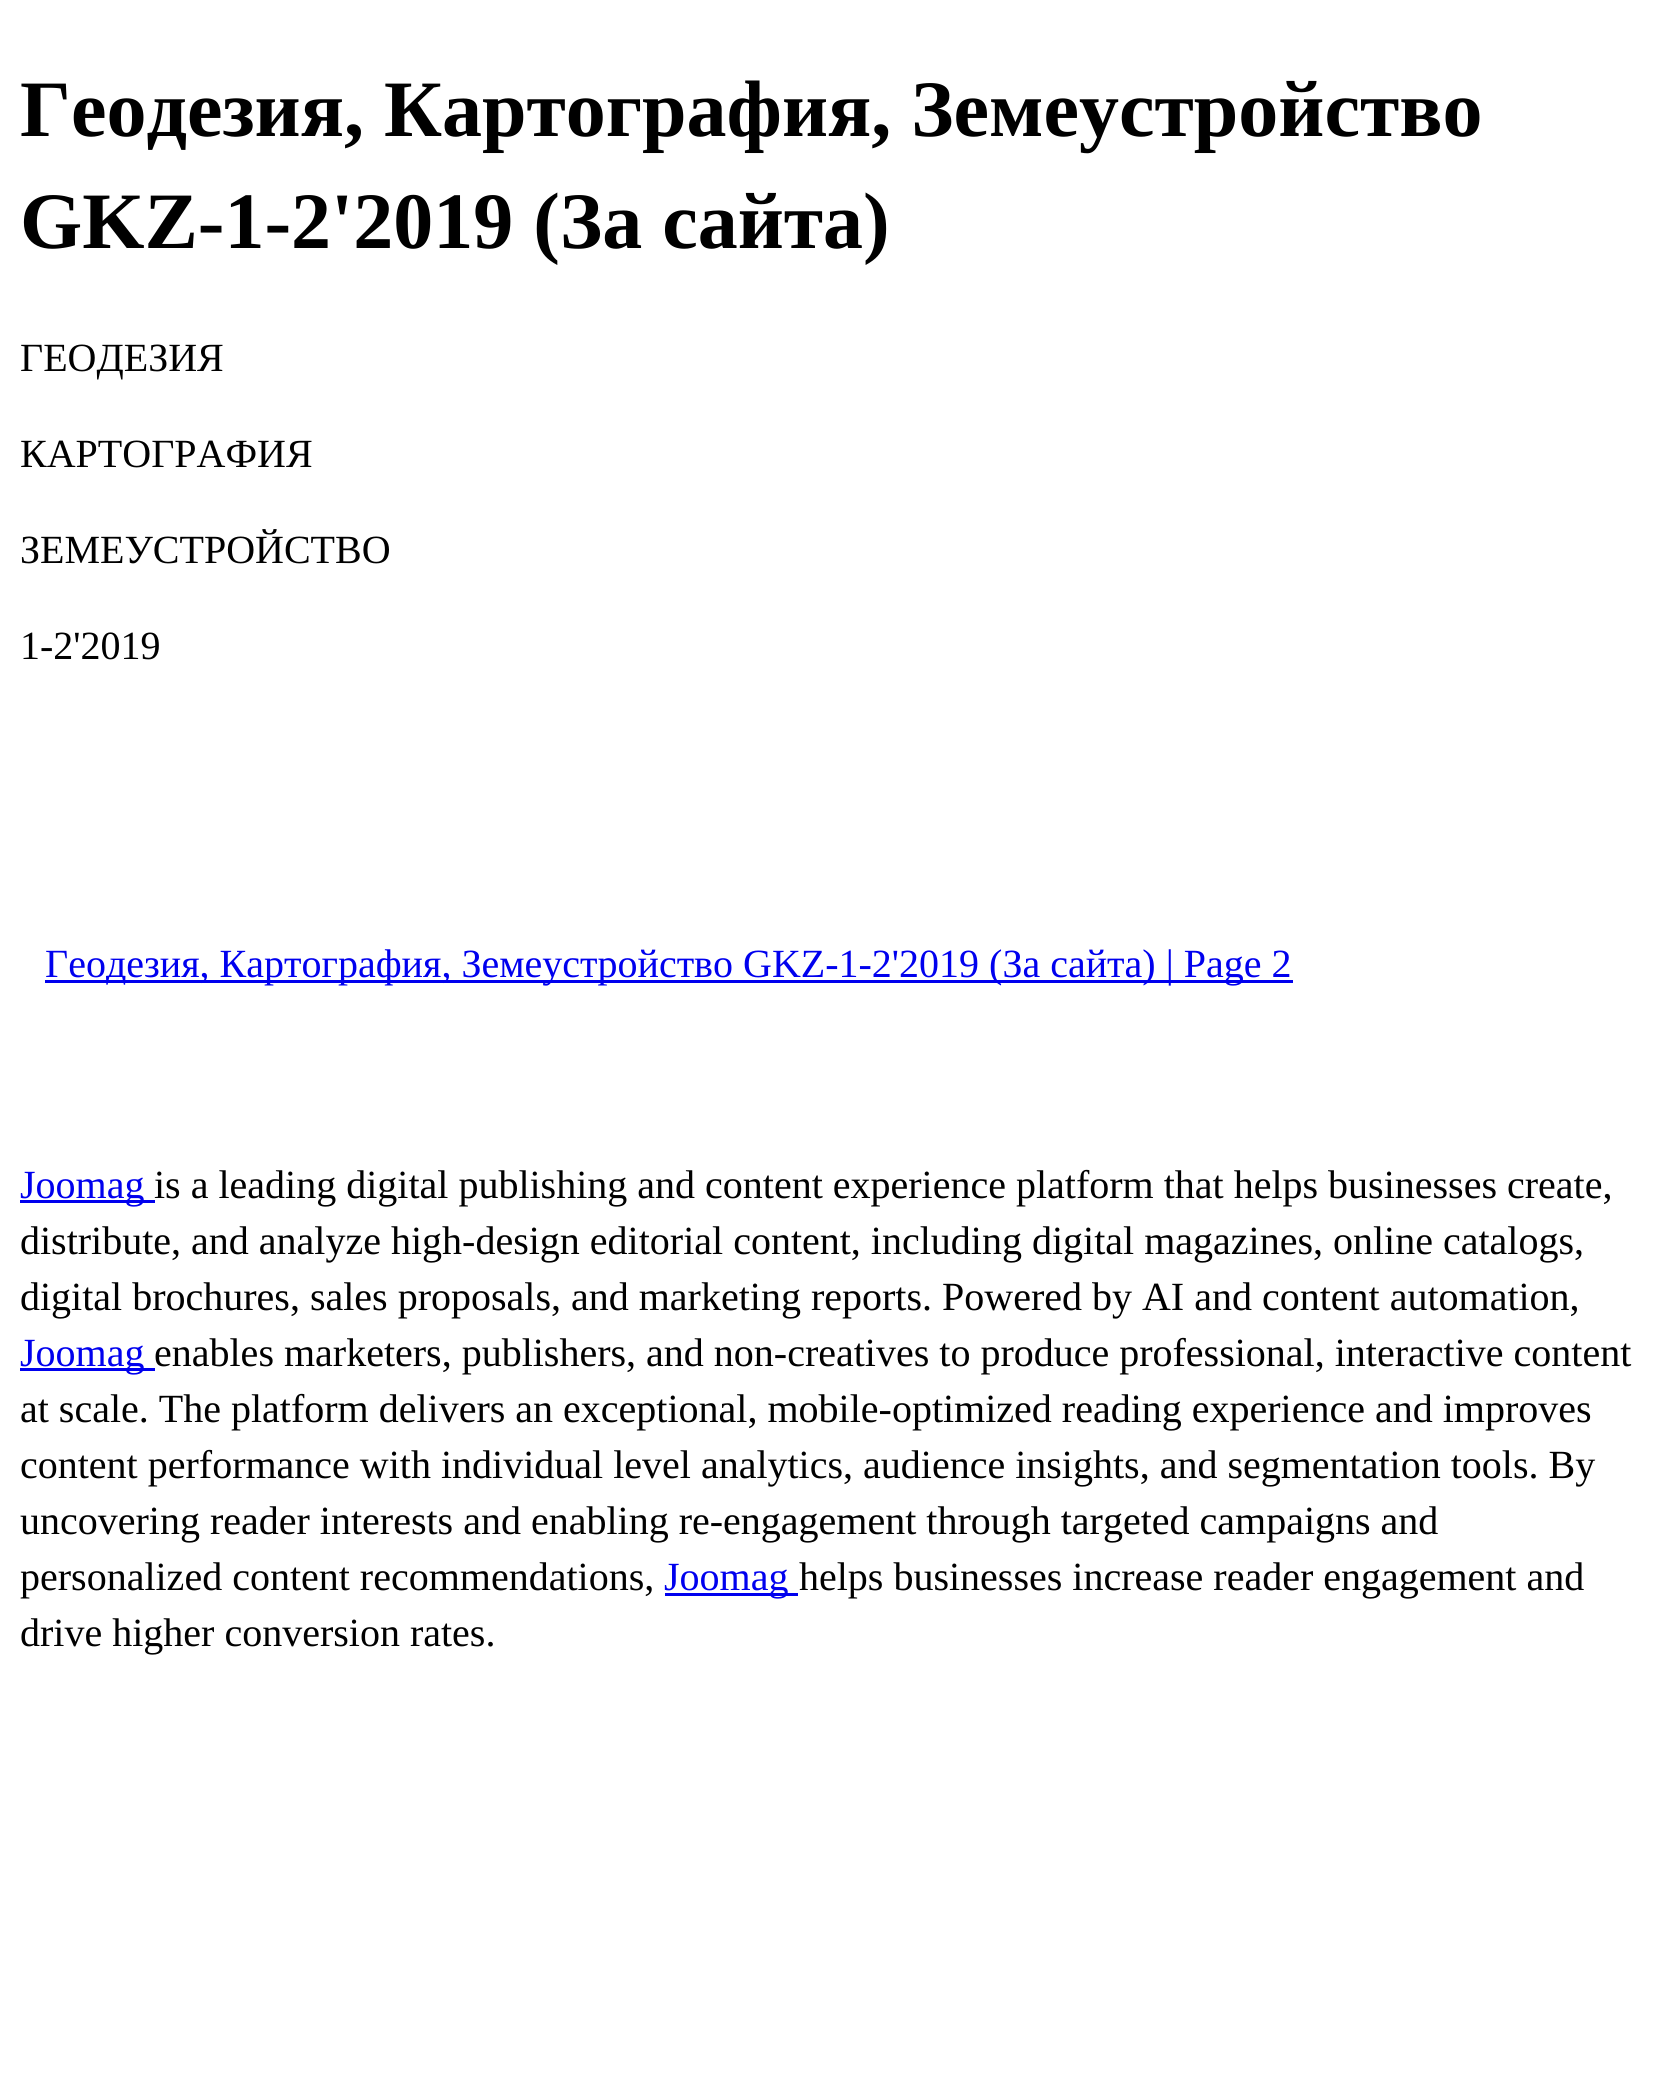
#include <cairo/cairo.h>
#include <math.h>
#include <stddef.h>

typedef struct { double x, y; const char *s; } line_t;
typedef struct { double x, y, w, h; unsigned color; } box_t;
static cairo_t *cr;

static void rgb(unsigned color)
{
	cairo_set_source_rgb(cr, (color >> 16) / 255.0, (color >> 8 & 255) / 255.0, (color & 255) / 255.0);
}

int main(void) {
	cairo_surface_t *surface = cairo_image_surface_create(CAIRO_FORMAT_RGB24, 1655, 2096);
	cr = cairo_create(surface);
	cairo_font_options_t *options = cairo_font_options_create();
	cairo_font_options_set_hint_metrics(options, CAIRO_HINT_METRICS_OFF);
	cairo_font_options_set_hint_style(options, CAIRO_HINT_STYLE_NONE);
	cairo_set_font_options(cr, options);
	cairo_set_miter_limit(cr, 4);
	rgb(0xffffff);
	cairo_paint(cr);
	{
		static const box_t items[] = {
			{45, 980, 1248, 3, 0x0000ee},
			{20, 1200, 135, 3, 0x0000ee},
			{20, 1368, 135, 3, 0x0000ee},
			{665, 1593, 133, 3, 0x0000ee},
		};
		for (size_t i = 0; i < sizeof items / sizeof *items; i++) {
			rgb(items[i].color);
			cairo_rectangle(cr, items[i].x, items[i].y, items[i].w, items[i].h);
			cairo_fill(cr);
		}
	}
	cairo_select_font_face(cr, "Liberation Serif", CAIRO_FONT_SLANT_NORMAL, CAIRO_FONT_WEIGHT_BOLD);
	cairo_set_font_size(cr, 80);
	rgb(0x000000);
	cairo_move_to(cr, 20, 136);
	cairo_show_text(cr, "Геодезия, Картография, Земеустройство");
	cairo_move_to(cr, 20, 248);
	cairo_show_text(cr, "GKZ-1-2'2019 (За сайта)");
	cairo_select_font_face(cr, "Liberation Serif", CAIRO_FONT_SLANT_NORMAL, CAIRO_FONT_WEIGHT_NORMAL);
	cairo_set_font_size(cr, 40);
	{
		static const line_t items[] = {
			{20, 371, "ГЕОДЕЗИЯ"},
			{20, 467, "КАРТОГРАФИЯ"},
			{20, 563, "ЗЕМЕУСТРОЙСТВО"},
			{20, 659, "1-2'2019"},
		};
		for (size_t i = 0; i < sizeof items / sizeof *items; i++) {
			cairo_move_to(cr, items[i].x, items[i].y);
			cairo_show_text(cr, items[i].s);
		}
	}
	rgb(0x0000ee);
	cairo_move_to(cr, 45, 977);
	cairo_show_text(cr, "Геодезия, Картография, Земеустройство GKZ-1-2'2019 (За сайта) | Page 2");
	cairo_move_to(cr, 20, 1198);
	cairo_show_text(cr, "Joomag");
	rgb(0x000000);
	{
		static const line_t items[] = {
			{154, 1198, "is a leading digital publishing and content experience platform that helps businesses create,"},
			{20, 1254, "distribute, and analyze high-design editorial content, including digital magazines, online catalogs,"},
			{20, 1310, "digital brochures, sales proposals, and marketing reports. Powered by AI and content automation,"},
		};
		for (size_t i = 0; i < sizeof items / sizeof *items; i++) {
			cairo_move_to(cr, items[i].x, items[i].y);
			cairo_show_text(cr, items[i].s);
		}
	}
	rgb(0x0000ee);
	cairo_move_to(cr, 20, 1366);
	cairo_show_text(cr, "Joomag");
	rgb(0x000000);
	{
		static const line_t items[] = {
			{154, 1366, "enables marketers, publishers, and non-creatives to produce professional, interactive content"},
			{20, 1422, "at scale. The platform delivers an exceptional, mobile-optimized reading experience and improves"},
			{20, 1478, "content performance with individual level analytics, audience insights, and segmentation tools. By"},
			{20, 1534, "uncovering reader interests and enabling re-engagement through targeted campaigns and"},
			{20, 1590, "personalized content recommendations,"},
		};
		for (size_t i = 0; i < sizeof items / sizeof *items; i++) {
			cairo_move_to(cr, items[i].x, items[i].y);
			cairo_show_text(cr, items[i].s);
		}
	}
	rgb(0x0000ee);
	cairo_move_to(cr, 664, 1590);
	cairo_show_text(cr, "Joomag");
	rgb(0x000000);
	cairo_move_to(cr, 799, 1590);
	cairo_show_text(cr, "helps businesses increase reader engagement and");
	cairo_move_to(cr, 20, 1646);
	cairo_show_text(cr, "drive higher conversion rates.");
	cairo_surface_write_to_png(surface, "page.png");
	cairo_font_options_destroy(options);
	cairo_destroy(cr);
	cairo_surface_destroy(surface);
	return 0;
}
